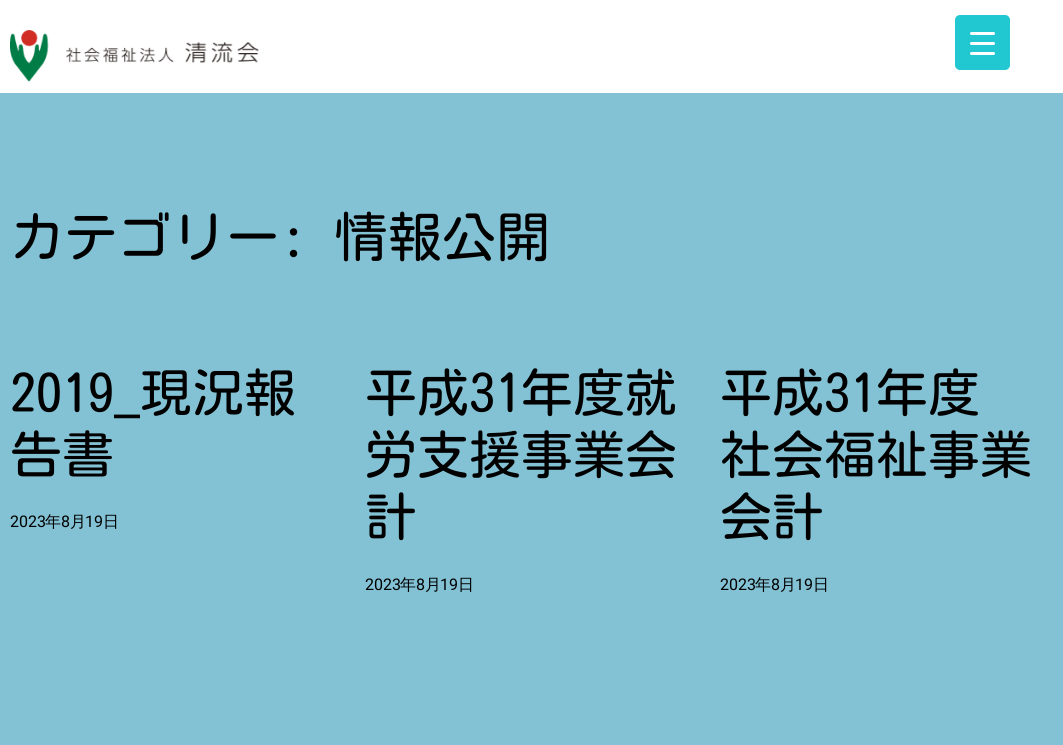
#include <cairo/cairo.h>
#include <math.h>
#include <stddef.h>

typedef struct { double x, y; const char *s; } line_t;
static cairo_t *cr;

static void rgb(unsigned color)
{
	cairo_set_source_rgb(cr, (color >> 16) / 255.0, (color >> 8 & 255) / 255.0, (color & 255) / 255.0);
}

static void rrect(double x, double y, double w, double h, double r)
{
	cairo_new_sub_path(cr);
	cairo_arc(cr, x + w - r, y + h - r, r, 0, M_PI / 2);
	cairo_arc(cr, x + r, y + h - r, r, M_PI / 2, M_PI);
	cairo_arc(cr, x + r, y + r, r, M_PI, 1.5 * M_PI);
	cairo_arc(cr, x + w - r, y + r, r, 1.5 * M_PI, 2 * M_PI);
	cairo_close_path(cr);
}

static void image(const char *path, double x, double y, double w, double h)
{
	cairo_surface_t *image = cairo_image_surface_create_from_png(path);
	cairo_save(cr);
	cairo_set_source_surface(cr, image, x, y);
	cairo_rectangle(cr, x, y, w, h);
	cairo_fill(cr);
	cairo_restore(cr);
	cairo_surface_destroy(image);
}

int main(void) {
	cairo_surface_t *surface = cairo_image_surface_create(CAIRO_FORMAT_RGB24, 1063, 745);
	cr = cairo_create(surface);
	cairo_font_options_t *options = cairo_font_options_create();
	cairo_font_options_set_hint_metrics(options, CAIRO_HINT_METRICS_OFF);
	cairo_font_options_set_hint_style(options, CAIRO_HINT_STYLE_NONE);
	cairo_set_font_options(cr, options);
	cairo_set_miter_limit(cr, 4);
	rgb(0x83c2d4);
	cairo_paint(cr);
	rgb(0xffffff);
	cairo_rectangle(cr, 0, 0, 1063, 93);
	cairo_fill(cr);
	rgb(0x21c8d1);
	rrect(955, 15, 55, 55, 5);
	cairo_fill(cr);
	rgb(0xffffff);
	rrect(970, 42, 25, 3, 1.5);
	cairo_fill(cr);
	rrect(970, 32, 25, 3, 1.5);
	cairo_fill(cr);
	rrect(970, 52, 25, 3, 1.5);
	cairo_fill(cr);
	image("img/1.png", 10, 30, 249, 52);
	cairo_select_font_face(cr, "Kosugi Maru", CAIRO_FONT_SLANT_NORMAL, CAIRO_FONT_WEIGHT_NORMAL);
	cairo_set_font_size(cr, 54);
	rgb(0x000000);
	cairo_move_to(cr, 10, 257);
	cairo_show_text(cr, "カテゴリー: 情報公開");
	cairo_set_font_size(cr, 52);
	cairo_move_to(cr, 10, 412);
	cairo_show_text(cr, "2019_現況報");
	cairo_move_to(cr, 10, 474);
	cairo_show_text(cr, "告書");
	cairo_select_font_face(cr, "Roboto", CAIRO_FONT_SLANT_NORMAL, CAIRO_FONT_WEIGHT_NORMAL);
	cairo_set_font_size(cr, 16);
	cairo_move_to(cr, 10, 527);
	cairo_show_text(cr, "2023");
	cairo_select_font_face(cr, "WenQuanYi Zen Hei Medium", CAIRO_FONT_SLANT_NORMAL, CAIRO_FONT_WEIGHT_NORMAL);
	cairo_move_to(cr, 45, 527);
	cairo_show_text(cr, "年");
	cairo_select_font_face(cr, "Roboto", CAIRO_FONT_SLANT_NORMAL, CAIRO_FONT_WEIGHT_NORMAL);
	cairo_move_to(cr, 61, 527);
	cairo_show_text(cr, "8");
	cairo_select_font_face(cr, "WenQuanYi Zen Hei Medium", CAIRO_FONT_SLANT_NORMAL, CAIRO_FONT_WEIGHT_NORMAL);
	cairo_move_to(cr, 70, 527);
	cairo_show_text(cr, "月");
	cairo_select_font_face(cr, "Roboto", CAIRO_FONT_SLANT_NORMAL, CAIRO_FONT_WEIGHT_NORMAL);
	cairo_move_to(cr, 85, 527);
	cairo_show_text(cr, "19");
	cairo_select_font_face(cr, "WenQuanYi Zen Hei Medium", CAIRO_FONT_SLANT_NORMAL, CAIRO_FONT_WEIGHT_NORMAL);
	cairo_move_to(cr, 103, 527);
	cairo_show_text(cr, "日");
	cairo_select_font_face(cr, "Kosugi Maru", CAIRO_FONT_SLANT_NORMAL, CAIRO_FONT_WEIGHT_NORMAL);
	cairo_set_font_size(cr, 52);
	{
		static const line_t items[] = {
			{365, 412, "平成31年度就"},
			{365, 474, "労支援事業会"},
			{365, 536, "計"},
		};
		for (size_t i = 0; i < sizeof items / sizeof *items; i++) {
			cairo_move_to(cr, items[i].x, items[i].y);
			cairo_show_text(cr, items[i].s);
		}
	}
	cairo_select_font_face(cr, "Roboto", CAIRO_FONT_SLANT_NORMAL, CAIRO_FONT_WEIGHT_NORMAL);
	cairo_set_font_size(cr, 16);
	cairo_move_to(cr, 365, 590);
	cairo_show_text(cr, "2023");
	cairo_select_font_face(cr, "WenQuanYi Zen Hei Medium", CAIRO_FONT_SLANT_NORMAL, CAIRO_FONT_WEIGHT_NORMAL);
	cairo_move_to(cr, 400, 590);
	cairo_show_text(cr, "年");
	cairo_select_font_face(cr, "Roboto", CAIRO_FONT_SLANT_NORMAL, CAIRO_FONT_WEIGHT_NORMAL);
	cairo_move_to(cr, 416, 590);
	cairo_show_text(cr, "8");
	cairo_select_font_face(cr, "WenQuanYi Zen Hei Medium", CAIRO_FONT_SLANT_NORMAL, CAIRO_FONT_WEIGHT_NORMAL);
	cairo_move_to(cr, 425, 590);
	cairo_show_text(cr, "月");
	cairo_select_font_face(cr, "Roboto", CAIRO_FONT_SLANT_NORMAL, CAIRO_FONT_WEIGHT_NORMAL);
	cairo_move_to(cr, 440, 590);
	cairo_show_text(cr, "19");
	cairo_select_font_face(cr, "WenQuanYi Zen Hei Medium", CAIRO_FONT_SLANT_NORMAL, CAIRO_FONT_WEIGHT_NORMAL);
	cairo_move_to(cr, 458, 590);
	cairo_show_text(cr, "日");
	cairo_select_font_face(cr, "Kosugi Maru", CAIRO_FONT_SLANT_NORMAL, CAIRO_FONT_WEIGHT_NORMAL);
	cairo_set_font_size(cr, 52);
	{
		static const line_t items[] = {
			{720, 412, "平成31年度"},
			{720, 474, "社会福祉事業"},
			{720, 536, "会計"},
		};
		for (size_t i = 0; i < sizeof items / sizeof *items; i++) {
			cairo_move_to(cr, items[i].x, items[i].y);
			cairo_show_text(cr, items[i].s);
		}
	}
	cairo_select_font_face(cr, "Roboto", CAIRO_FONT_SLANT_NORMAL, CAIRO_FONT_WEIGHT_NORMAL);
	cairo_set_font_size(cr, 16);
	cairo_move_to(cr, 720, 590);
	cairo_show_text(cr, "2023");
	cairo_select_font_face(cr, "WenQuanYi Zen Hei Medium", CAIRO_FONT_SLANT_NORMAL, CAIRO_FONT_WEIGHT_NORMAL);
	cairo_move_to(cr, 755, 590);
	cairo_show_text(cr, "年");
	cairo_select_font_face(cr, "Roboto", CAIRO_FONT_SLANT_NORMAL, CAIRO_FONT_WEIGHT_NORMAL);
	cairo_move_to(cr, 771, 590);
	cairo_show_text(cr, "8");
	cairo_select_font_face(cr, "WenQuanYi Zen Hei Medium", CAIRO_FONT_SLANT_NORMAL, CAIRO_FONT_WEIGHT_NORMAL);
	cairo_move_to(cr, 780, 590);
	cairo_show_text(cr, "月");
	cairo_select_font_face(cr, "Roboto", CAIRO_FONT_SLANT_NORMAL, CAIRO_FONT_WEIGHT_NORMAL);
	cairo_move_to(cr, 795, 590);
	cairo_show_text(cr, "19");
	cairo_select_font_face(cr, "WenQuanYi Zen Hei Medium", CAIRO_FONT_SLANT_NORMAL, CAIRO_FONT_WEIGHT_NORMAL);
	cairo_move_to(cr, 813, 590);
	cairo_show_text(cr, "日");
	cairo_surface_write_to_png(surface, "page.png");
	cairo_font_options_destroy(options);
	cairo_destroy(cr);
	cairo_surface_destroy(surface);
	return 0;
}
